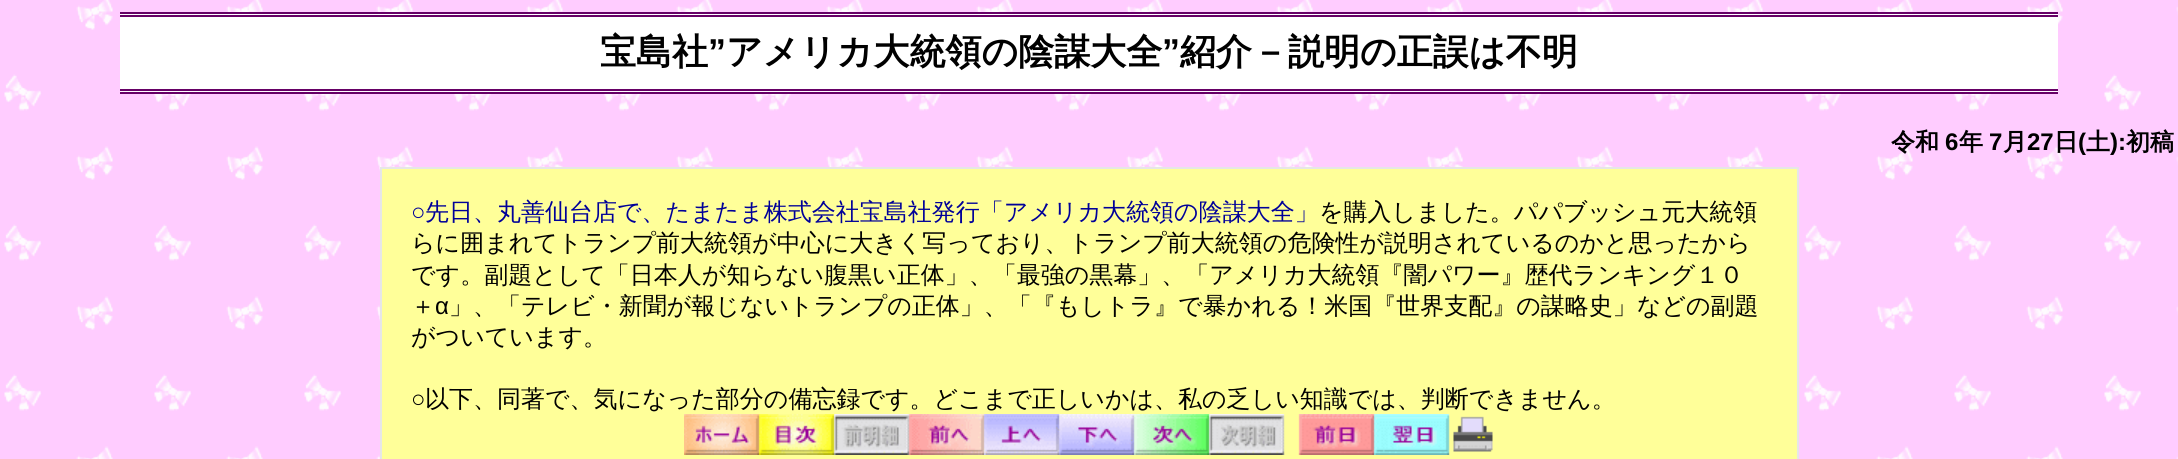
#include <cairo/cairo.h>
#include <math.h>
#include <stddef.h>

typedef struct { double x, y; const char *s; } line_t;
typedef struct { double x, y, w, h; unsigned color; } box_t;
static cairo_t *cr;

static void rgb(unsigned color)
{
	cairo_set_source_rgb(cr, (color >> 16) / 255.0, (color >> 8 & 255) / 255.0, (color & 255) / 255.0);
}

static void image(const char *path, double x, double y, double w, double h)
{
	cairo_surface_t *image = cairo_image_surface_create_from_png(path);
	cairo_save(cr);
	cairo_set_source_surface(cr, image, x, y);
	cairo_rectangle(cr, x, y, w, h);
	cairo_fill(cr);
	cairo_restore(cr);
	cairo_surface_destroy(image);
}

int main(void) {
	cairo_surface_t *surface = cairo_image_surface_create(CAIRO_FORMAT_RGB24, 2178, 459);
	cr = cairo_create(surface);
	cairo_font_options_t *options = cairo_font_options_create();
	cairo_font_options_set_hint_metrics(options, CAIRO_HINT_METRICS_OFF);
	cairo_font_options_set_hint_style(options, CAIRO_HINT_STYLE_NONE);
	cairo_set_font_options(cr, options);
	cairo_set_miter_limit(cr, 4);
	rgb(0xffffff);
	cairo_paint(cr);
	image("img/1.png", 0, 0, 2178, 459);
	{
		static const box_t items[] = {
			{120, 14, 1938, 78, 0xffffff},
			{120, 12, 1938, 2, 0x660066},
			{120, 15, 1938, 2, 0x660066},
			{120, 89, 1938, 2, 0x660066},
			{120, 92, 1938, 2, 0x660066},
		};
		for (size_t i = 0; i < sizeof items / sizeof *items; i++) {
			rgb(items[i].color);
			cairo_rectangle(cr, items[i].x, items[i].y, items[i].w, items[i].h);
			cairo_fill(cr);
		}
	}
	rgb(0xffff99);
	cairo_rectangle(cr, 381, 168, 1417, 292);
	cairo_fill_preserve(cr);
	rgb(0xe6e6e6);
	cairo_stroke(cr);
	image("img/2.png", 684, 414, 809, 41);
	cairo_select_font_face(cr, "WenQuanYi Zen Hei", CAIRO_FONT_SLANT_NORMAL, CAIRO_FONT_WEIGHT_BOLD);
	cairo_set_font_size(cr, 36);
	rgb(0x000000);
	cairo_move_to(cr, 600, 64);
	cairo_show_text(cr, "宝島社");
	cairo_select_font_face(cr, "Liberation Sans", CAIRO_FONT_SLANT_NORMAL, CAIRO_FONT_WEIGHT_BOLD);
	cairo_move_to(cr, 708, 64);
	cairo_show_text(cr, "”");
	cairo_select_font_face(cr, "WenQuanYi Zen Hei", CAIRO_FONT_SLANT_NORMAL, CAIRO_FONT_WEIGHT_BOLD);
	cairo_move_to(cr, 726, 64);
	cairo_show_text(cr, "アメリカ大統領の陰謀大全");
	cairo_select_font_face(cr, "Liberation Sans", CAIRO_FONT_SLANT_NORMAL, CAIRO_FONT_WEIGHT_BOLD);
	cairo_move_to(cr, 1162, 64);
	cairo_show_text(cr, "”");
	cairo_select_font_face(cr, "WenQuanYi Zen Hei", CAIRO_FONT_SLANT_NORMAL, CAIRO_FONT_WEIGHT_BOLD);
	cairo_move_to(cr, 1180, 64);
	cairo_show_text(cr, "紹介－説明の正誤は不明");
	cairo_set_font_size(cr, 24);
	cairo_move_to(cr, 1891, 150);
	cairo_show_text(cr, "令和");
	cairo_select_font_face(cr, "Liberation Sans", CAIRO_FONT_SLANT_NORMAL, CAIRO_FONT_WEIGHT_BOLD);
	cairo_move_to(cr, 1945, 150);
	cairo_show_text(cr, "6");
	cairo_select_font_face(cr, "WenQuanYi Zen Hei", CAIRO_FONT_SLANT_NORMAL, CAIRO_FONT_WEIGHT_BOLD);
	cairo_move_to(cr, 1959, 150);
	cairo_show_text(cr, "年");
	cairo_select_font_face(cr, "Liberation Sans", CAIRO_FONT_SLANT_NORMAL, CAIRO_FONT_WEIGHT_BOLD);
	cairo_move_to(cr, 1989, 150);
	cairo_show_text(cr, "7");
	cairo_select_font_face(cr, "WenQuanYi Zen Hei", CAIRO_FONT_SLANT_NORMAL, CAIRO_FONT_WEIGHT_BOLD);
	cairo_move_to(cr, 2003, 150);
	cairo_show_text(cr, "月");
	cairo_select_font_face(cr, "Liberation Sans", CAIRO_FONT_SLANT_NORMAL, CAIRO_FONT_WEIGHT_BOLD);
	cairo_move_to(cr, 2027, 150);
	cairo_show_text(cr, "27");
	cairo_select_font_face(cr, "WenQuanYi Zen Hei", CAIRO_FONT_SLANT_NORMAL, CAIRO_FONT_WEIGHT_BOLD);
	cairo_move_to(cr, 2054, 150);
	cairo_show_text(cr, "日");
	cairo_select_font_face(cr, "Liberation Sans", CAIRO_FONT_SLANT_NORMAL, CAIRO_FONT_WEIGHT_BOLD);
	cairo_move_to(cr, 2078, 150);
	cairo_show_text(cr, "(");
	cairo_select_font_face(cr, "WenQuanYi Zen Hei", CAIRO_FONT_SLANT_NORMAL, CAIRO_FONT_WEIGHT_BOLD);
	cairo_move_to(cr, 2086, 150);
	cairo_show_text(cr, "土");
	cairo_select_font_face(cr, "Liberation Sans", CAIRO_FONT_SLANT_NORMAL, CAIRO_FONT_WEIGHT_BOLD);
	cairo_move_to(cr, 2110, 150);
	cairo_show_text(cr, "):");
	cairo_select_font_face(cr, "WenQuanYi Zen Hei", CAIRO_FONT_SLANT_NORMAL, CAIRO_FONT_WEIGHT_BOLD);
	cairo_move_to(cr, 2126, 150);
	cairo_show_text(cr, "初稿");
	cairo_select_font_face(cr, "Liberation Sans", CAIRO_FONT_SLANT_NORMAL, CAIRO_FONT_WEIGHT_NORMAL);
	rgb(0x000099);
	cairo_move_to(cr, 411, 220);
	cairo_show_text(cr, "○");
	cairo_select_font_face(cr, "WenQuanYi Zen Hei Medium", CAIRO_FONT_SLANT_NORMAL, CAIRO_FONT_WEIGHT_NORMAL);
	cairo_move_to(cr, 425, 220);
	cairo_show_text(cr, "先日、丸善仙台店で、たまたま株式会社宝島社発行「アメリカ大統領の陰謀大全」");
	rgb(0x000000);
	{
		static const line_t items[] = {
			{1319, 220, "を購入しました。パパブッシュ元大統領"},
			{411, 251, "らに囲まれてトランプ前大統領が中心に大きく写っており、トランプ前大統領の危険性が説明されているのかと思ったから"},
			{411, 283, "です。副題として「日本人が知らない腹黒い正体」、「最強の黒幕」、「アメリカ大統領『闇パワー』歴代ランキング１０"},
			{411, 314, "＋"},
		};
		for (size_t i = 0; i < sizeof items / sizeof *items; i++) {
			cairo_move_to(cr, items[i].x, items[i].y);
			cairo_show_text(cr, items[i].s);
		}
	}
	cairo_select_font_face(cr, "Liberation Sans", CAIRO_FONT_SLANT_NORMAL, CAIRO_FONT_WEIGHT_NORMAL);
	cairo_move_to(cr, 435, 314);
	cairo_show_text(cr, "α");
	cairo_select_font_face(cr, "WenQuanYi Zen Hei Medium", CAIRO_FONT_SLANT_NORMAL, CAIRO_FONT_WEIGHT_NORMAL);
	cairo_move_to(cr, 449, 314);
	cairo_show_text(cr, "」、「テレビ・新聞が報じないトランプの正体」、「『もしトラ』で暴かれる！米国『世界支配』の謀略史」などの副題");
	cairo_move_to(cr, 411, 345);
	cairo_show_text(cr, "がついています。");
	cairo_select_font_face(cr, "Liberation Sans", CAIRO_FONT_SLANT_NORMAL, CAIRO_FONT_WEIGHT_NORMAL);
	cairo_move_to(cr, 411, 407);
	cairo_show_text(cr, "○");
	cairo_select_font_face(cr, "WenQuanYi Zen Hei Medium", CAIRO_FONT_SLANT_NORMAL, CAIRO_FONT_WEIGHT_NORMAL);
	cairo_move_to(cr, 425, 407);
	cairo_show_text(cr, "以下、同著で、気になった部分の備忘録です。どこまで正しいかは、私の乏しい知識では、判断できません。");
	cairo_surface_write_to_png(surface, "page.png");
	cairo_font_options_destroy(options);
	cairo_destroy(cr);
	cairo_surface_destroy(surface);
	return 0;
}
